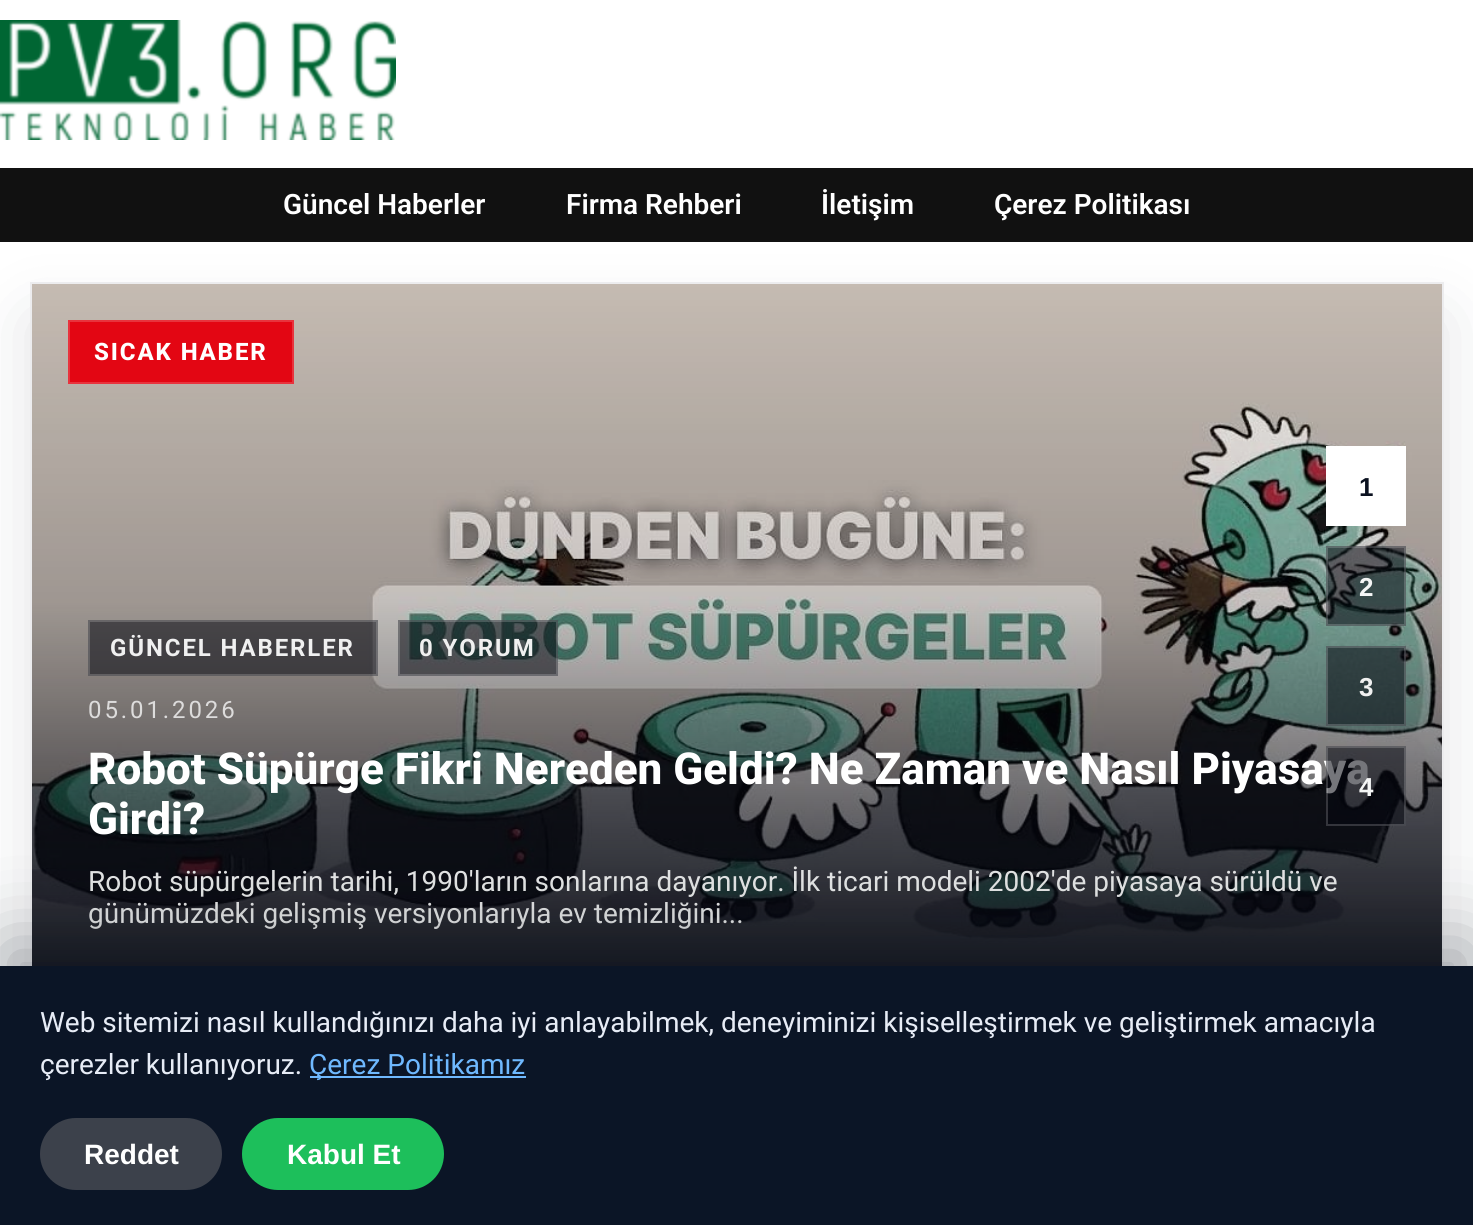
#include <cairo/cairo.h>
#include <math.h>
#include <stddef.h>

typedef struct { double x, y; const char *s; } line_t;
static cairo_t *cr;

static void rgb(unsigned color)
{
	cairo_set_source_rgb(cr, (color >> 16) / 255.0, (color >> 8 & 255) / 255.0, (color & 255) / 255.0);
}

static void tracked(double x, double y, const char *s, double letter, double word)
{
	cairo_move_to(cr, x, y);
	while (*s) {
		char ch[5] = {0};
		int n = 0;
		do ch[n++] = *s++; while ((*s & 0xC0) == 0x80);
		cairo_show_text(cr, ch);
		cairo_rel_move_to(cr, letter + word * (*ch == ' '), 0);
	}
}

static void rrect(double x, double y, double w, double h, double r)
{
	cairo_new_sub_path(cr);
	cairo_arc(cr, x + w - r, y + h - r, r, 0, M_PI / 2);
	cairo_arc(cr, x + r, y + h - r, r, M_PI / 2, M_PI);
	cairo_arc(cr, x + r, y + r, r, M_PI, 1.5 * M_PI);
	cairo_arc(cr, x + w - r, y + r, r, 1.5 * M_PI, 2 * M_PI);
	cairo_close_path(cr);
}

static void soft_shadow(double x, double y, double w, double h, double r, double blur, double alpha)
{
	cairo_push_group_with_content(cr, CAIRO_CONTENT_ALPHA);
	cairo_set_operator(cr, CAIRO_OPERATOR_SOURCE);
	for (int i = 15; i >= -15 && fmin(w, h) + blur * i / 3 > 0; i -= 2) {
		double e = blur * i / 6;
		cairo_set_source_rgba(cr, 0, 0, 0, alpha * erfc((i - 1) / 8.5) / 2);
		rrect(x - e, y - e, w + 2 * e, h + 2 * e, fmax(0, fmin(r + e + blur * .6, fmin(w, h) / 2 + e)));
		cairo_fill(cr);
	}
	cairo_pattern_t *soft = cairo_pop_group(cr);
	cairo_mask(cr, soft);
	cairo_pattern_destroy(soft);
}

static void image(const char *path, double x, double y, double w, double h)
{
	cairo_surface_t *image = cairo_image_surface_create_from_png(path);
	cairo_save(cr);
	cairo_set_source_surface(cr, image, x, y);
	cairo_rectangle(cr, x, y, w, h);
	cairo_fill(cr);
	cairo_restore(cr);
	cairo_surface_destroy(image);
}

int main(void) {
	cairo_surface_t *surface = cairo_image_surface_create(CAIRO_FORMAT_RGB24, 1473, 1225);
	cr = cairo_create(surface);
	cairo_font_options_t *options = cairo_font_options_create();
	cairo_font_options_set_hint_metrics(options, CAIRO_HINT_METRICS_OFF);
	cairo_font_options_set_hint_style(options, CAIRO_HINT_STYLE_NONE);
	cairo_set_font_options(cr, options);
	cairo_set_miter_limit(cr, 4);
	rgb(0xffffff);
	cairo_paint(cr);
	image("img/1.png", 0, 20, 396, 120);
	rgb(0x111111);
	cairo_rectangle(cr, 0, 168, 1473, 74);
	cairo_fill(cr);
	rgb(0x101828);
	soft_shadow(30, 318, 1414, 710, 0, 35, 0.12);
	cairo_rectangle(cr, 31, 283, 1412, 708);
	rgb(0xececee);
	cairo_stroke(cr);
	image("img/2.png", 32, 284, 1410, 682);
	rgb(0xe30613);
	cairo_rectangle(cr, 69, 321, 224, 62);
	cairo_fill_preserve(cr);
	rgb(0xe8333d);
	cairo_stroke(cr);
	cairo_set_source_rgba(cr, 0.02, 0.027, 0.063, 0.55);
	cairo_rectangle(cr, 88, 620, 290, 56);
	cairo_fill(cr);
	cairo_rectangle(cr, 89, 621, 288, 54);
	cairo_set_source_rgba(cr, 1, 1, 1, 0.18);
	cairo_stroke(cr);
	cairo_set_source_rgba(cr, 0.02, 0.027, 0.063, 0.55);
	cairo_rectangle(cr, 398, 620, 160, 56);
	cairo_fill(cr);
	cairo_rectangle(cr, 399, 621, 158, 54);
	cairo_set_source_rgba(cr, 1, 1, 1, 0.18);
	cairo_stroke(cr);
	rgb(0xffffff);
	cairo_rectangle(cr, 1326, 446, 80, 80);
	cairo_fill(cr);
	cairo_set_source_rgba(cr, 0.02, 0.027, 0.063, 0.55);
	cairo_rectangle(cr, 1326, 546, 80, 80);
	cairo_fill(cr);
	cairo_rectangle(cr, 1327, 547, 78, 78);
	cairo_set_source_rgba(cr, 1, 1, 1, 0.18);
	cairo_stroke(cr);
	cairo_set_source_rgba(cr, 0.02, 0.027, 0.063, 0.55);
	cairo_rectangle(cr, 1326, 646, 80, 80);
	cairo_fill(cr);
	cairo_rectangle(cr, 1327, 647, 78, 78);
	cairo_set_source_rgba(cr, 1, 1, 1, 0.18);
	cairo_stroke(cr);
	cairo_select_font_face(cr, "Roboto SemiBold", CAIRO_FONT_SLANT_NORMAL, CAIRO_FONT_WEIGHT_NORMAL);
	cairo_set_font_size(cr, 28);
	rgb(0xffffff);
	{
		static const line_t items[] = {
			{283, 214, "Güncel Haberler"},
			{566, 214, "Firma Rehberi"},
			{821, 214, "İletişim"},
			{994, 214, "Çerez Politikası"},
		};
		for (size_t i = 0; i < sizeof items / sizeof *items; i++) {
			cairo_move_to(cr, items[i].x, items[i].y);
			cairo_show_text(cr, items[i].s);
		}
	}
	cairo_select_font_face(cr, "Roboto ExtraBold", CAIRO_FONT_SLANT_NORMAL, CAIRO_FONT_WEIGHT_NORMAL);
	cairo_set_font_size(cr, 24);
	tracked(94, 360, "SICAK HABER", 1.9, 0);
	cairo_select_font_face(cr, "Roboto", CAIRO_FONT_SLANT_NORMAL, CAIRO_FONT_WEIGHT_BOLD);
	rgb(0xf0f0f0);
	tracked(110, 656, "GÜNCEL HABERLER", 1.9, 0);
	tracked(419, 656, "0 YORUM", 1.9, 0);
	cairo_select_font_face(cr, "Roboto", CAIRO_FONT_SLANT_NORMAL, CAIRO_FONT_WEIGHT_NORMAL);
	rgb(0xdddcdc);
	tracked(88, 718, "05.01.2026", 2.9, 0);
	cairo_select_font_face(cr, "Roboto ExtraBold", CAIRO_FONT_SLANT_NORMAL, CAIRO_FONT_WEIGHT_NORMAL);
	cairo_set_font_size(cr, 44);
	rgb(0xffffff);
	cairo_move_to(cr, 88, 784);
	cairo_show_text(cr, "Robot Süpürge Fikri Nereden Geldi? Ne Zaman ve Nasıl Piyasaya");
	cairo_move_to(cr, 88, 834);
	cairo_show_text(cr, "Girdi?");
	cairo_select_font_face(cr, "Roboto", CAIRO_FONT_SLANT_NORMAL, CAIRO_FONT_WEIGHT_NORMAL);
	cairo_set_font_size(cr, 28);
	rgb(0xe4e5e5);
	cairo_move_to(cr, 88, 891);
	cairo_show_text(cr, "Robot süpürgelerin tarihi, 1990'ların sonlarına dayanıyor. İlk ticari modeli 2002'de piyasaya sürüldü ve");
	cairo_move_to(cr, 88, 923);
	cairo_show_text(cr, "günümüzdeki gelişmiş versiyonlarıyla ev temizliğini...");
	cairo_select_font_face(cr, "Liberation Sans", CAIRO_FONT_SLANT_NORMAL, CAIRO_FONT_WEIGHT_BOLD);
	cairo_set_font_size(cr, 26);
	rgb(0x0b1120);
	cairo_move_to(cr, 1359, 496);
	cairo_show_text(cr, "1");
	rgb(0xf5f6f6);
	cairo_move_to(cr, 1359, 596);
	cairo_show_text(cr, "2");
	rgb(0xf0f0f0);
	cairo_move_to(cr, 1359, 696);
	cairo_show_text(cr, "3");
	cairo_set_source_rgba(cr, 0.02, 0.027, 0.063, 0.55);
	cairo_rectangle(cr, 1326, 746, 80, 80);
	cairo_fill(cr);
	cairo_rectangle(cr, 1327, 747, 78, 78);
	cairo_set_source_rgba(cr, 1, 1, 1, 0.18);
	cairo_stroke(cr);
	rgb(0xf5f6f6);
	cairo_move_to(cr, 1359, 796);
	cairo_show_text(cr, "4");
	rgb(0x0c1522);
	soft_shadow(0, 942, 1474, 260, 0, 40, 0.35);
	rgb(0x0b1526);
	cairo_rectangle(cr, 0, 966, 1473, 259);
	cairo_fill(cr);
	cairo_select_font_face(cr, "Roboto", CAIRO_FONT_SLANT_NORMAL, CAIRO_FONT_WEIGHT_NORMAL);
	cairo_set_font_size(cr, 28);
	rgb(0xe7ecf6);
	cairo_move_to(cr, 40, 1032);
	cairo_show_text(cr, "Web sitemizi nasıl kullandığınızı daha iyi anlayabilmek, deneyiminizi kişiselleştirmek ve geliştirmek amacıyla");
	cairo_move_to(cr, 40, 1074);
	cairo_show_text(cr, "çerezler kullanıyoruz.");
	rgb(0x6fb9ff);
	cairo_rectangle(cr, 310, 1076, 216, 2);
	cairo_fill(cr);
	cairo_move_to(cr, 309, 1074);
	cairo_show_text(cr, "Çerez Politikamız");
	rgb(0x3c414b);
	rrect(40, 1118, 182, 72, 36);
	cairo_fill(cr);
	cairo_select_font_face(cr, "Liberation Sans", CAIRO_FONT_SLANT_NORMAL, CAIRO_FONT_WEIGHT_BOLD);
	rgb(0xffffff);
	cairo_move_to(cr, 84, 1164);
	cairo_show_text(cr, "Reddet");
	rgb(0x1dbf5b);
	rrect(242, 1118, 202, 72, 36);
	cairo_fill(cr);
	rgb(0xffffff);
	cairo_move_to(cr, 287, 1164);
	cairo_show_text(cr, "Kabul Et");
	cairo_surface_write_to_png(surface, "page.png");
	cairo_font_options_destroy(options);
	cairo_destroy(cr);
	cairo_surface_destroy(surface);
	return 0;
}
